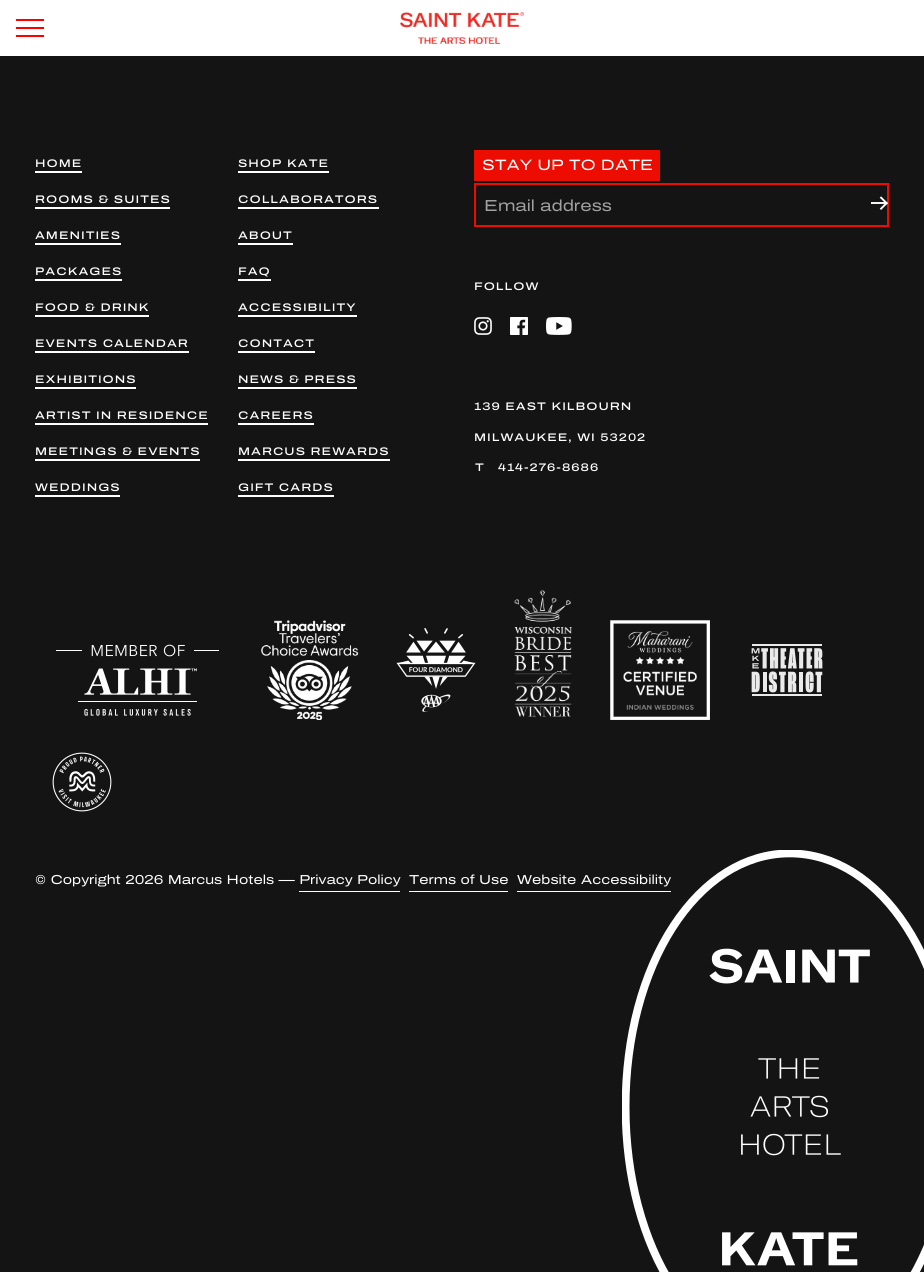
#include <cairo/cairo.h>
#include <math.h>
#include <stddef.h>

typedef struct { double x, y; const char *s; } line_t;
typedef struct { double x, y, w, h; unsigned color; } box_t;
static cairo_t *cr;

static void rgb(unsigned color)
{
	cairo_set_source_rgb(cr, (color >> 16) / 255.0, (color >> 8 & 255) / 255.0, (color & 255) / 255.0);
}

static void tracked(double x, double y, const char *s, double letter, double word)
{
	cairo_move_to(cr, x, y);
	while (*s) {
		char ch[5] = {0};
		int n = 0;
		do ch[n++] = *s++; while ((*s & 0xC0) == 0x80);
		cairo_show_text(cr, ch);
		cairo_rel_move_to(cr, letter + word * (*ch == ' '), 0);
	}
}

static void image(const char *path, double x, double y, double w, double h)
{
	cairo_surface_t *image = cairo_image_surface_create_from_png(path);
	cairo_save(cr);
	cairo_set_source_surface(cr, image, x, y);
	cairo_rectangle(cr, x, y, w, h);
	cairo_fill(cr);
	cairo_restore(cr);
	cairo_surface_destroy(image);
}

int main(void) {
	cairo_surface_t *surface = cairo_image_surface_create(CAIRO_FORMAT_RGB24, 924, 1272);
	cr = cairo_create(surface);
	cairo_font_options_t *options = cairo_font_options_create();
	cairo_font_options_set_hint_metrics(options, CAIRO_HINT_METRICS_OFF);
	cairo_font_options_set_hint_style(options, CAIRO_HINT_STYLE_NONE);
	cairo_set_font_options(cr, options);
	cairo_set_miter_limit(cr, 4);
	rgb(0x141414);
	cairo_paint(cr);
	{
		static const box_t items[] = {
			{0, 0, 924, 56, 0xffffff},
			{16, 19, 28, 2, 0xfd0000},
			{16, 27, 28, 2, 0xfd0000},
			{16, 35, 28, 2, 0xfd0000},
		};
		for (size_t i = 0; i < sizeof items / sizeof *items; i++) {
			rgb(items[i].color);
			cairo_rectangle(cr, items[i].x, items[i].y, items[i].w, items[i].h);
			cairo_fill(cr);
		}
	}
	image("img/1.png", 400, 12, 124, 32);
	{
		static const box_t items[] = {
			{35, 171, 47, 2, 0xffffff},
			{35, 207, 135, 2, 0xffffff},
			{35, 243, 86, 2, 0xffffff},
			{35, 279, 87, 2, 0xffffff},
			{35, 315, 114, 2, 0xffffff},
			{35, 351, 154, 2, 0xffffff},
			{35, 387, 101, 2, 0xffffff},
			{35, 423, 173, 2, 0xffffff},
			{35, 459, 165, 2, 0xffffff},
			{35, 495, 85, 2, 0xffffff},
			{238, 171, 91, 2, 0xffffff},
			{238, 207, 141, 2, 0xffffff},
			{238, 243, 55, 2, 0xffffff},
			{238, 279, 33, 2, 0xffffff},
			{238, 315, 119, 2, 0xffffff},
			{238, 351, 77, 2, 0xffffff},
			{238, 387, 119, 2, 0xffffff},
			{238, 423, 76, 2, 0xffffff},
			{238, 459, 152, 2, 0xffffff},
			{238, 495, 96, 2, 0xffffff},
			{474, 150, 186, 31, 0xed0c00},
		};
		for (size_t i = 0; i < sizeof items / sizeof *items; i++) {
			rgb(items[i].color);
			cairo_rectangle(cr, items[i].x, items[i].y, items[i].w, items[i].h);
			cairo_fill(cr);
		}
	}
	cairo_rectangle(cr, 475, 184, 413, 42);
	cairo_stroke(cr);
	image("img/2.png", 871, 196, 17, 14);
	image("img/3.png", 474, 317, 18, 18);
	image("img/4.png", 510, 317, 18, 18);
	image("img/5.png", 546, 317, 26, 18);
	image("img/6.png", 475, 463, 9, 8);
	image("img/7.png", 56, 644, 163, 72);
	image("img/8.png", 261, 620, 98, 100);
	image("img/9.png", 396, 628, 80, 84);
	image("img/10.png", 514, 590, 58, 127);
	image("img/11.png", 610, 620, 100, 100);
	image("img/12.png", 751, 644, 72, 52);
	image("img/13.png", 52, 752, 60, 60);
	rgb(0xffffff);
	cairo_rectangle(cr, 409, 891, 99, 1);
	cairo_fill(cr);
	image("img/14.png", 622, 850, 302, 422);
	cairo_rectangle(cr, 517, 891, 154, 1);
	cairo_fill(cr);
	cairo_rectangle(cr, 299, 891, 101, 1);
	cairo_fill(cr);
	cairo_select_font_face(cr, "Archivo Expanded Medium", CAIRO_FONT_SLANT_NORMAL, CAIRO_FONT_WEIGHT_NORMAL);
	cairo_set_font_size(cr, 11);
	{
		static const line_t items[] = {
			{35, 167, "HOME"},
			{35, 203, "ROOMS & SUITES"},
			{35, 239, "AMENITIES"},
			{35, 275, "PACKAGES"},
			{35, 311, "FOOD & DRINK"},
			{35, 347, "EVENTS CALENDAR"},
			{35, 383, "EXHIBITIONS"},
			{35, 419, "ARTIST IN RESIDENCE"},
			{35, 455, "MEETINGS & EVENTS"},
			{35, 491, "WEDDINGS"},
			{238, 167, "SHOP KATE"},
			{238, 203, "COLLABORATORS"},
			{238, 239, "ABOUT"},
			{238, 275, "FAQ"},
			{238, 311, "ACCESSIBILITY"},
			{238, 347, "CONTACT"},
			{238, 383, "NEWS & PRESS"},
			{238, 419, "CAREERS"},
			{238, 455, "MARCUS REWARDS"},
			{238, 491, "GIFT CARDS"},
		};
		for (size_t i = 0; i < sizeof items / sizeof *items; i++) {
			tracked(items[i].x, items[i].y, items[i].s, 1, 0);
		}
	}
	cairo_select_font_face(cr, "Archivo Expanded", CAIRO_FONT_SLANT_NORMAL, CAIRO_FONT_WEIGHT_NORMAL);
	cairo_set_font_size(cr, 15);
	cairo_move_to(cr, 482, 170);
	cairo_show_text(cr, "STAY UP TO DATE");
	cairo_set_font_size(cr, 16);
	rgb(0xa1a1a1);
	cairo_move_to(cr, 484, 211);
	cairo_show_text(cr, "Email address");
	cairo_select_font_face(cr, "Archivo Expanded Medium", CAIRO_FONT_SLANT_NORMAL, CAIRO_FONT_WEIGHT_NORMAL);
	cairo_set_font_size(cr, 11);
	rgb(0xffffff);
	{
		static const line_t items[] = {
			{474, 290, "FOLLOW"},
			{474, 410, "139 EAST KILBOURN"},
			{474, 441, "MILWAUKEE, WI 53202"},
			{498, 471, "414-276-8686"},
		};
		for (size_t i = 0; i < sizeof items / sizeof *items; i++) {
			tracked(items[i].x, items[i].y, items[i].s, 1, 0);
		}
	}
	cairo_select_font_face(cr, "Archivo Expanded", CAIRO_FONT_SLANT_NORMAL, CAIRO_FONT_WEIGHT_NORMAL);
	cairo_set_font_size(cr, 13);
	{
		static const line_t items[] = {
			{35, 884, "© Copyright 2026 Marcus Hotels — Privacy Policy"},
			{409, 884, "Terms of Use"},
			{517, 884, "Website Accessibility"},
		};
		for (size_t i = 0; i < sizeof items / sizeof *items; i++) {
			cairo_move_to(cr, items[i].x, items[i].y);
			cairo_show_text(cr, items[i].s);
		}
	}
	cairo_surface_write_to_png(surface, "page.png");
	cairo_font_options_destroy(options);
	cairo_destroy(cr);
	cairo_surface_destroy(surface);
	return 0;
}
